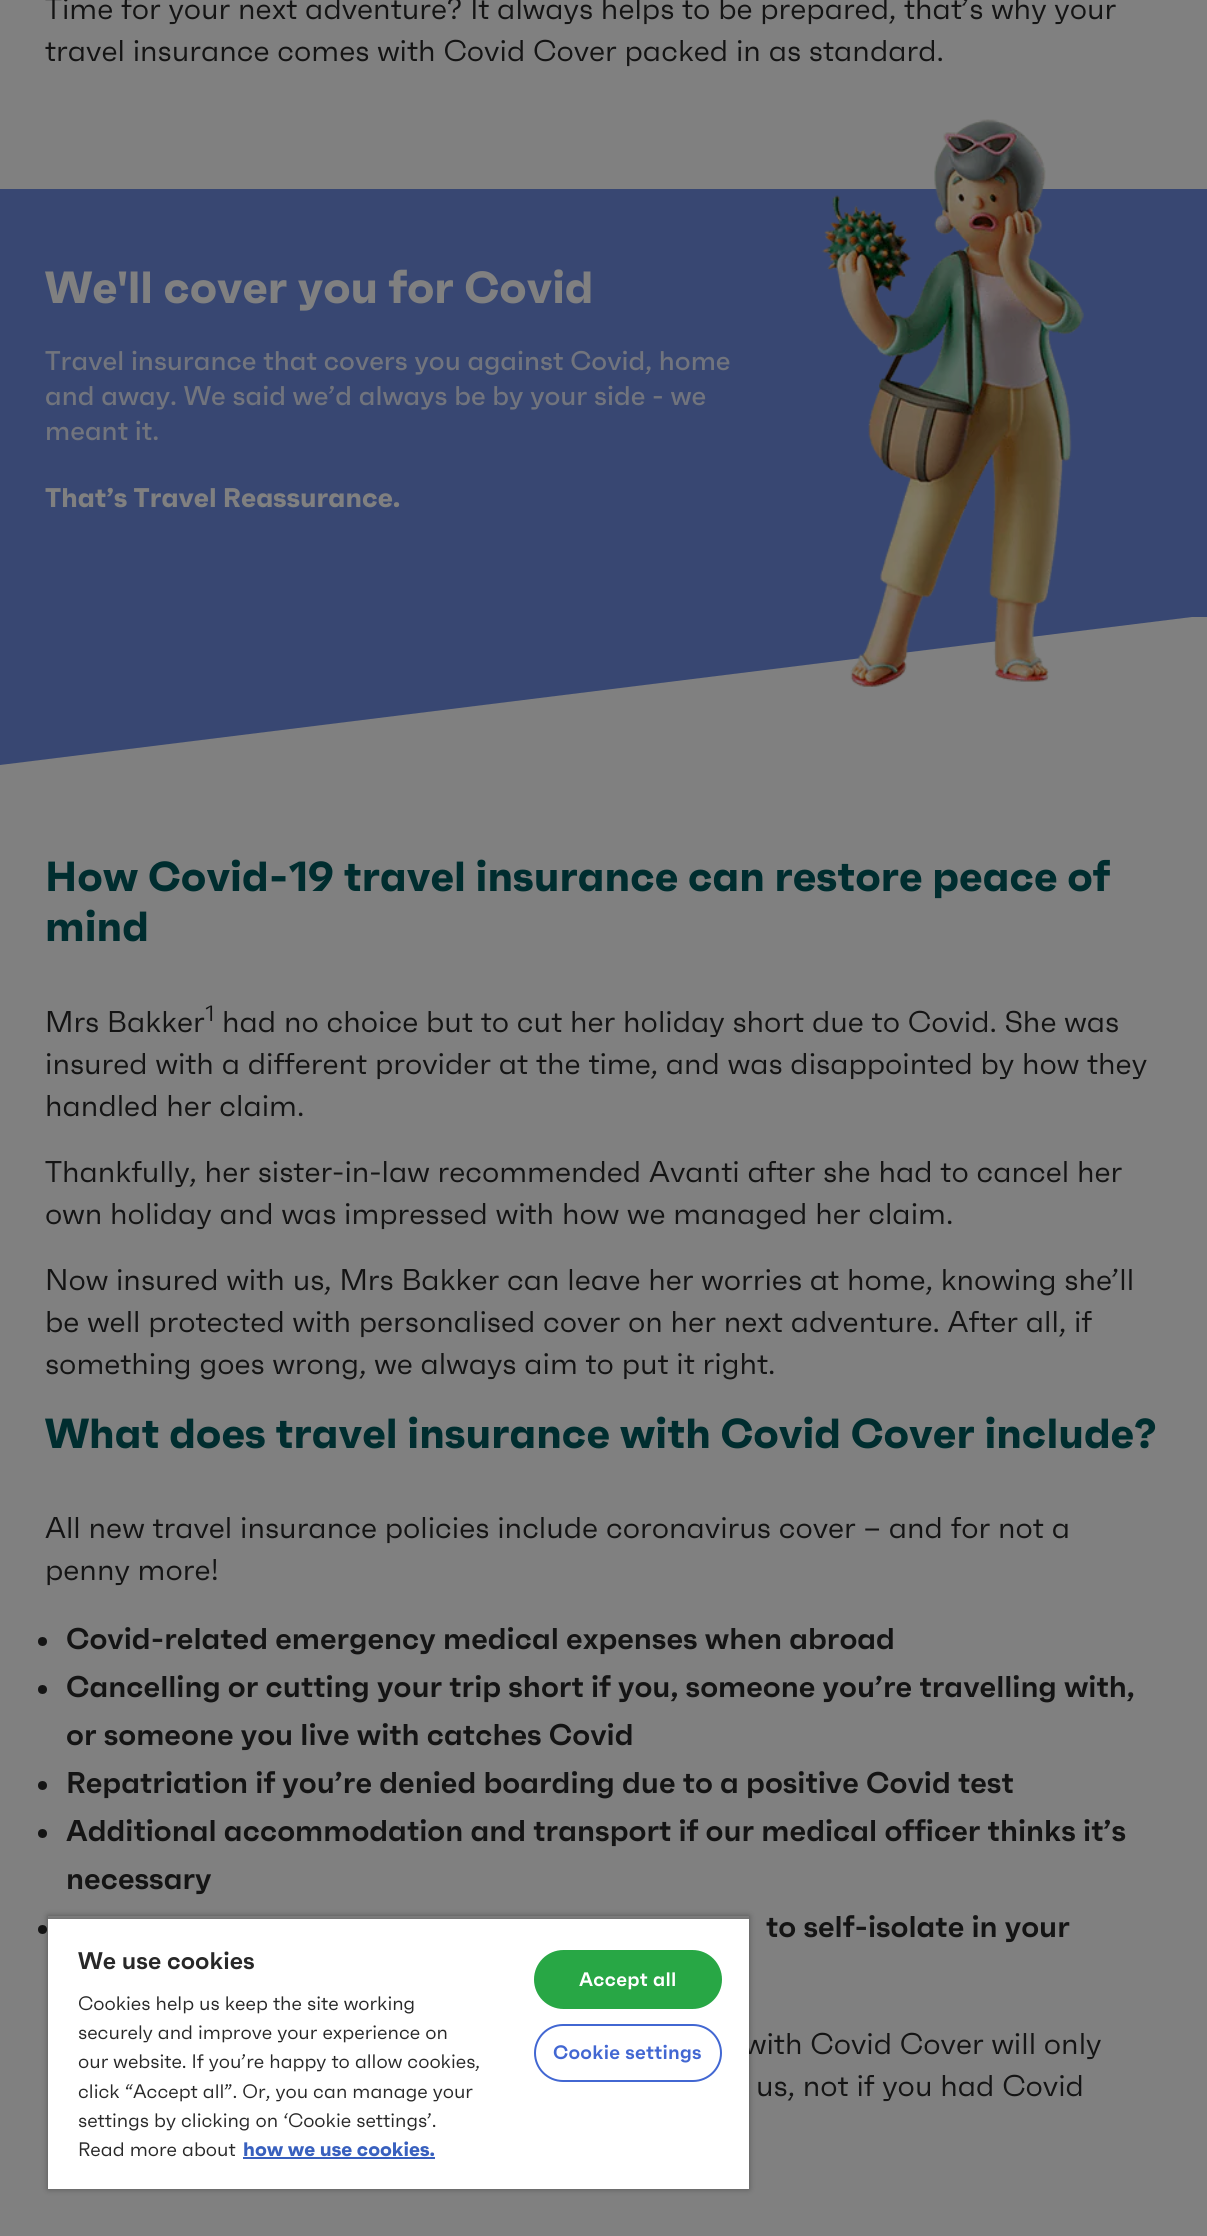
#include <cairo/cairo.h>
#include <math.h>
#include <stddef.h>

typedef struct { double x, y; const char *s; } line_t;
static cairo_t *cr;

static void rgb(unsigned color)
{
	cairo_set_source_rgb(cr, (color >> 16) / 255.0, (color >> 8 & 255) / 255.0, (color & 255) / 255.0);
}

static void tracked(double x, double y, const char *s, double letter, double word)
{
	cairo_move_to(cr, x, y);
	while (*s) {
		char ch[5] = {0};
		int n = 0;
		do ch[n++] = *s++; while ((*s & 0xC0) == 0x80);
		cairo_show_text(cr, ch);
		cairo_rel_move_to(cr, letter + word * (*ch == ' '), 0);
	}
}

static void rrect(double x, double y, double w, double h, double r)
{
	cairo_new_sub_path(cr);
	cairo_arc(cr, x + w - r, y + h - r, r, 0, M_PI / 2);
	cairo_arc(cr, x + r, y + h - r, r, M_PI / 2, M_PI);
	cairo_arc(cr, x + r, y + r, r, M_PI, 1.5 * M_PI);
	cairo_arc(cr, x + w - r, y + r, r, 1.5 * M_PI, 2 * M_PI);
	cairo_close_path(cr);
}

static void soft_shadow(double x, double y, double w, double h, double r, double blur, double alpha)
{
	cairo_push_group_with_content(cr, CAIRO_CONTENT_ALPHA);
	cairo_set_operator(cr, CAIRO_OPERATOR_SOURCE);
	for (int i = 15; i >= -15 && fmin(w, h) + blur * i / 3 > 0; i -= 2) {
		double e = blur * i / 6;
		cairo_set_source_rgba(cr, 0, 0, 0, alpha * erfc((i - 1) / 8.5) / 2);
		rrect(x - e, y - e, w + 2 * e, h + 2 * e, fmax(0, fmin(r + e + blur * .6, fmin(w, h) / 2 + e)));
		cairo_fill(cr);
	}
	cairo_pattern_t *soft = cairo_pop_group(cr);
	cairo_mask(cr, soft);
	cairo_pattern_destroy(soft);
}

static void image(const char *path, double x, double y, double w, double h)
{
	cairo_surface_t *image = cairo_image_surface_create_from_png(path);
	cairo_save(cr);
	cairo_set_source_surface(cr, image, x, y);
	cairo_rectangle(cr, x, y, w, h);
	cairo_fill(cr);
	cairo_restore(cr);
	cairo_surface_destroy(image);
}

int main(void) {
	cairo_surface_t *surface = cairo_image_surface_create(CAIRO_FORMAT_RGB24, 1207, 2236);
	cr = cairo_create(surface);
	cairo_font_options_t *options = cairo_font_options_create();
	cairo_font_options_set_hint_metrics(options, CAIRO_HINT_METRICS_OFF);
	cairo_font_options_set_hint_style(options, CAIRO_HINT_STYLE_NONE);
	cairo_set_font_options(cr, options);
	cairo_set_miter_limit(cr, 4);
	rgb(0x808080);
	cairo_paint(cr);
	rgb(0x384772);
	cairo_rectangle(cr, 0, 189, 1207, 428);
	cairo_fill(cr);
	cairo_new_path(cr);
	cairo_move_to(cr, 0, 615);
	cairo_line_to(cr, 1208, 615);
	cairo_line_to(cr, 0, 765);
	cairo_close_path(cr);
	cairo_fill(cr);
	image("img/1.png", 821, 119, 263, 568);
	rgb(0x141414);
	cairo_arc(cr, 42.5, 1641.5, 4.5, 0, 2 * M_PI);
	cairo_fill(cr);
	cairo_arc(cr, 42.5, 1689.5, 4.5, 0, 2 * M_PI);
	cairo_fill(cr);
	cairo_arc(cr, 42.5, 1785.5, 4.5, 0, 2 * M_PI);
	cairo_fill(cr);
	cairo_arc(cr, 42.5, 1833.5, 4.5, 0, 2 * M_PI);
	cairo_fill(cr);
	cairo_arc(cr, 42.5, 1929.5, 4.5, 0, 2 * M_PI);
	cairo_fill(cr);
	cairo_save(cr);
	cairo_set_fill_rule(cr, CAIRO_FILL_RULE_EVEN_ODD);
	cairo_new_path(cr);
	cairo_move_to(cr, 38, 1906);
	cairo_line_to(cr, 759, 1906);
	cairo_line_to(cr, 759, 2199);
	cairo_line_to(cr, 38, 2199);
	cairo_close_path(cr);
	cairo_move_to(cr, 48, 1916);
	cairo_line_to(cr, 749, 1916);
	cairo_line_to(cr, 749, 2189);
	cairo_line_to(cr, 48, 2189);
	cairo_close_path(cr);
	cairo_clip(cr);
	rgb(0x000000);
	soft_shadow(48, 1916, 701, 273, 0, 3, 0.35);
	cairo_restore(cr);
	cairo_save(cr);
	cairo_rectangle(cr, 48, 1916, 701, 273);
	cairo_clip(cr);
	rgb(0x000000);
	soft_shadow(48, 1919, 701, 270, 0, 3, 0.2);
	cairo_restore(cr);
	cairo_select_font_face(cr, "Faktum", CAIRO_FONT_SLANT_NORMAL, CAIRO_FONT_WEIGHT_NORMAL);
	cairo_set_font_size(cr, 30);
	cairo_move_to(cr, 45, 19);
	cairo_show_text(cr, "Time for your next adventure? It always helps to be prepared, that’s why your");
	cairo_move_to(cr, 45, 61);
	cairo_show_text(cr, "travel insurance comes with Covid Cover packed in as standard.");
	cairo_select_font_face(cr, "Faktum", CAIRO_FONT_SLANT_NORMAL, CAIRO_FONT_WEIGHT_BOLD);
	cairo_set_font_size(cr, 45);
	rgb(0x808080);
	cairo_move_to(cr, 45, 303);
	cairo_show_text(cr, "We'll cover you for Covid");
	cairo_select_font_face(cr, "Faktum Medium", CAIRO_FONT_SLANT_NORMAL, CAIRO_FONT_WEIGHT_NORMAL);
	cairo_set_font_size(cr, 27);
	rgb(0x71747d);
	{
		static const line_t items[] = {
			{45, 370, "Travel insurance that covers you against Covid, home"},
			{45, 405, "and away. We said we’d always be by your side - we"},
			{45, 440, "meant it."},
		};
		for (size_t i = 0; i < sizeof items / sizeof *items; i++) {
			cairo_move_to(cr, items[i].x, items[i].y);
			cairo_show_text(cr, items[i].s);
		}
	}
	cairo_select_font_face(cr, "Faktum", CAIRO_FONT_SLANT_NORMAL, CAIRO_FONT_WEIGHT_BOLD);
	rgb(0x808080);
	cairo_move_to(cr, 45, 507);
	cairo_show_text(cr, "That’s Travel Reassurance.");
	cairo_set_font_size(cr, 42);
	rgb(0x002d2f);
	cairo_move_to(cr, 45, 891);
	cairo_show_text(cr, "How Covid-19 travel insurance can restore peace of");
	cairo_move_to(cr, 45, 941);
	cairo_show_text(cr, "mind");
	cairo_select_font_face(cr, "Faktum", CAIRO_FONT_SLANT_NORMAL, CAIRO_FONT_WEIGHT_NORMAL);
	cairo_set_font_size(cr, 30);
	rgb(0x141414);
	cairo_move_to(cr, 45, 1032);
	cairo_show_text(cr, "Mrs Bakker");
	cairo_set_font_size(cr, 22);
	cairo_move_to(cr, 205, 1021);
	cairo_show_text(cr, "1");
	cairo_set_font_size(cr, 30);
	{
		static const line_t items[] = {
			{222, 1032, "had no choice but to cut her holiday short due to Covid. She was"},
			{45, 1074, "insured with a different provider at the time, and was disappointed by how they"},
			{45, 1116, "handled her claim."},
			{45, 1182, "Thankfully, her sister-in-law recommended Avanti after she had to cancel her"},
			{45, 1224, "own holiday and was impressed with how we managed her claim."},
			{45, 1290, "Now insured with us, Mrs Bakker can leave her worries at home, knowing she’ll"},
			{45, 1332, "be well protected with personalised cover on her next adventure. After all, if"},
			{45, 1374, "something goes wrong, we always aim to put it right."},
		};
		for (size_t i = 0; i < sizeof items / sizeof *items; i++) {
			cairo_move_to(cr, items[i].x, items[i].y);
			cairo_show_text(cr, items[i].s);
		}
	}
	cairo_select_font_face(cr, "Faktum", CAIRO_FONT_SLANT_NORMAL, CAIRO_FONT_WEIGHT_BOLD);
	cairo_set_font_size(cr, 42);
	rgb(0x002d2f);
	cairo_move_to(cr, 45, 1448);
	cairo_show_text(cr, "What does travel insurance with Covid Cover include?");
	cairo_select_font_face(cr, "Faktum", CAIRO_FONT_SLANT_NORMAL, CAIRO_FONT_WEIGHT_NORMAL);
	cairo_set_font_size(cr, 30);
	rgb(0x141414);
	cairo_move_to(cr, 45, 1538);
	cairo_show_text(cr, "All new travel insurance policies include coronavirus cover – and for not a");
	cairo_move_to(cr, 45, 1580);
	cairo_show_text(cr, "penny more!");
	cairo_select_font_face(cr, "Faktum SemiBold", CAIRO_FONT_SLANT_NORMAL, CAIRO_FONT_WEIGHT_NORMAL);
	{
		static const line_t items[] = {
			{66, 1649, "Covid-related emergency medical expenses when abroad"},
			{66, 1697, "Cancelling or cutting your trip short if you, someone you’re travelling with,"},
			{66, 1745, "or someone you live with catches Covid"},
			{66, 1793, "Repatriation if you’re denied boarding due to a positive Covid test"},
			{66, 1841, "Additional accommodation and transport if our medical officer thinks it’s"},
			{66, 1889, "necessary"},
			{766, 1937, "to self-isolate in your"},
		};
		for (size_t i = 0; i < sizeof items / sizeof *items; i++) {
			cairo_move_to(cr, items[i].x, items[i].y);
			cairo_show_text(cr, items[i].s);
		}
	}
	cairo_select_font_face(cr, "Faktum", CAIRO_FONT_SLANT_NORMAL, CAIRO_FONT_WEIGHT_NORMAL);
	cairo_move_to(cr, 744, 2054);
	cairo_show_text(cr, "with Covid Cover will only");
	cairo_move_to(cr, 756, 2096);
	cairo_show_text(cr, "us, not if you had Covid");
	rgb(0xffffff);
	cairo_rectangle(cr, 48, 1919, 701, 270);
	cairo_fill(cr);
	cairo_select_font_face(cr, "Faktum SemiBold", CAIRO_FONT_SLANT_NORMAL, CAIRO_FONT_WEIGHT_NORMAL);
	cairo_set_font_size(cr, 24);
	rgb(0x282828);
	cairo_move_to(cr, 78, 1969);
	cairo_show_text(cr, "We use cookies");
	cairo_select_font_face(cr, "Faktum", CAIRO_FONT_SLANT_NORMAL, CAIRO_FONT_WEIGHT_NORMAL);
	cairo_set_font_size(cr, 19.5);
	{
		static const line_t items[] = {
			{78, 2010, "Cookies help us keep the site working"},
			{78, 2039, "securely and improve your experience on"},
			{78, 2068, "our website. If you’re happy to allow cookies,"},
			{78, 2098, "click “Accept all”. Or, you can manage your"},
			{78, 2127, "settings by clicking on ‘Cookie settings’."},
			{78, 2156, "Read more about"},
		};
		for (size_t i = 0; i < sizeof items / sizeof *items; i++) {
			cairo_move_to(cr, items[i].x, items[i].y);
			cairo_show_text(cr, items[i].s);
		}
	}
	cairo_select_font_face(cr, "Faktum", CAIRO_FONT_SLANT_NORMAL, CAIRO_FONT_WEIGHT_BOLD);
	rgb(0x3860be);
	cairo_move_to(cr, 243, 2156);
	cairo_show_text(cr, "how we use cookies.");
	cairo_rectangle(cr, 243, 2157, 192, 2);
	cairo_fill(cr);
	rgb(0x28a745);
	rrect(535, 1951, 186, 57, 28.5);
	cairo_fill_preserve(cr);
	cairo_stroke(cr);
	cairo_select_font_face(cr, "Faktum SemiBold", CAIRO_FONT_SLANT_NORMAL, CAIRO_FONT_WEIGHT_NORMAL);
	rgb(0xffffff);
	tracked(579, 1986, "Accept all", 0.25, 0);
	rrect(535, 2025, 186, 56, 28);
	rgb(0x4267d2);
	cairo_stroke(cr);
	tracked(553, 2059, "Cookie settings", 0.25, 0);
	cairo_surface_write_to_png(surface, "page.png");
	cairo_font_options_destroy(options);
	cairo_destroy(cr);
	cairo_surface_destroy(surface);
	return 0;
}
